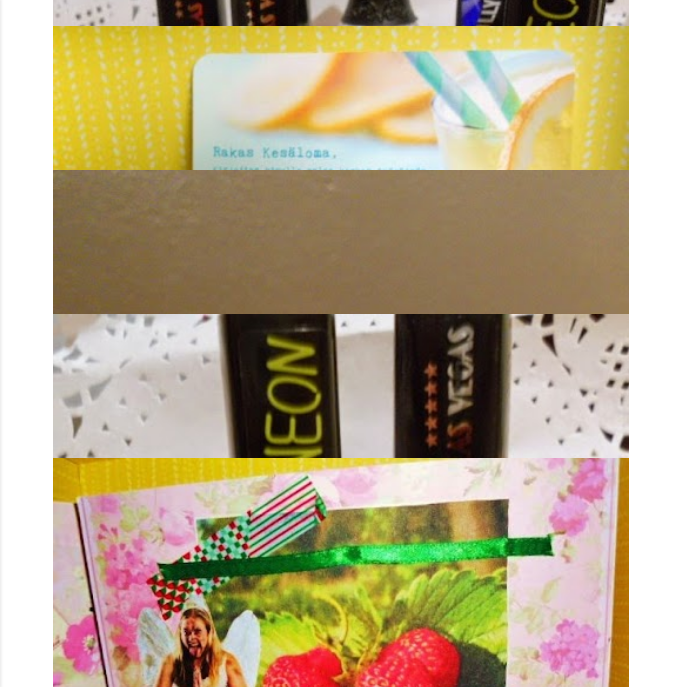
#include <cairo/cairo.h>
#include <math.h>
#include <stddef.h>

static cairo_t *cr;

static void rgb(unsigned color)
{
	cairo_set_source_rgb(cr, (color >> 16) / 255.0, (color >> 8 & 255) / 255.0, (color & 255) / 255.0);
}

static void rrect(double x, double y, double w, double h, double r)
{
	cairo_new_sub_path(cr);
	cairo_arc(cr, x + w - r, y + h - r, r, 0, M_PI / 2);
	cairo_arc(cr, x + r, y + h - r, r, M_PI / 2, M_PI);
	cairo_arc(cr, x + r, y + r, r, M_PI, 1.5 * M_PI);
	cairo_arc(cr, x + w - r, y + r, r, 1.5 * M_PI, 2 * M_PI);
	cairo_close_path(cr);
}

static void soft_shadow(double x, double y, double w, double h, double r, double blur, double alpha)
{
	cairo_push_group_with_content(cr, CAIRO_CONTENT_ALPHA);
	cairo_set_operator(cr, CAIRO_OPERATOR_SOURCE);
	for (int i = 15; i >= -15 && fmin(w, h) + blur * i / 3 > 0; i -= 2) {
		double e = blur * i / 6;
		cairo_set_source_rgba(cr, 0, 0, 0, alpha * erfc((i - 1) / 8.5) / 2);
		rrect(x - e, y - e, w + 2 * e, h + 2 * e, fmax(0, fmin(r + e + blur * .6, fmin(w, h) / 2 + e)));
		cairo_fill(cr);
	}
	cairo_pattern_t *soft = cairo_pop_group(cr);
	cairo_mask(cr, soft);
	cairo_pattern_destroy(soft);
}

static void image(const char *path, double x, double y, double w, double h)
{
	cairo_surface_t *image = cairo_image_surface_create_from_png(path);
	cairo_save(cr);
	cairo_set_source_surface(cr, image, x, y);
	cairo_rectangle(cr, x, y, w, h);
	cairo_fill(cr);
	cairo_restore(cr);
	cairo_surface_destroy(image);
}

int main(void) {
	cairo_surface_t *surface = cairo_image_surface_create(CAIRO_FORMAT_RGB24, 682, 687);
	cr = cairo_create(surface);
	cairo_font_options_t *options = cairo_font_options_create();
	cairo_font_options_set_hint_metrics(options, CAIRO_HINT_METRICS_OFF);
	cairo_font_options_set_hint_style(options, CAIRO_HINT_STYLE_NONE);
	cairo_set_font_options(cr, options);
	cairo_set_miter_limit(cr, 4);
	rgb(0xffffff);
	cairo_paint(cr);
	rgb(0x000000);
	soft_shadow(-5, 0, 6, 687, 0, 1.5, 0.1);
	image("img/1.png", 53, 0, 576, 26);
	image("img/2.png", 53, 26, 576, 144);
	image("img/3.png", 53, 170, 576, 144);
	image("img/4.png", 53, 314, 576, 144);
	image("img/5.png", 53, 458, 576, 229);
	cairo_surface_write_to_png(surface, "page.png");
	cairo_font_options_destroy(options);
	cairo_destroy(cr);
	cairo_surface_destroy(surface);
	return 0;
}
